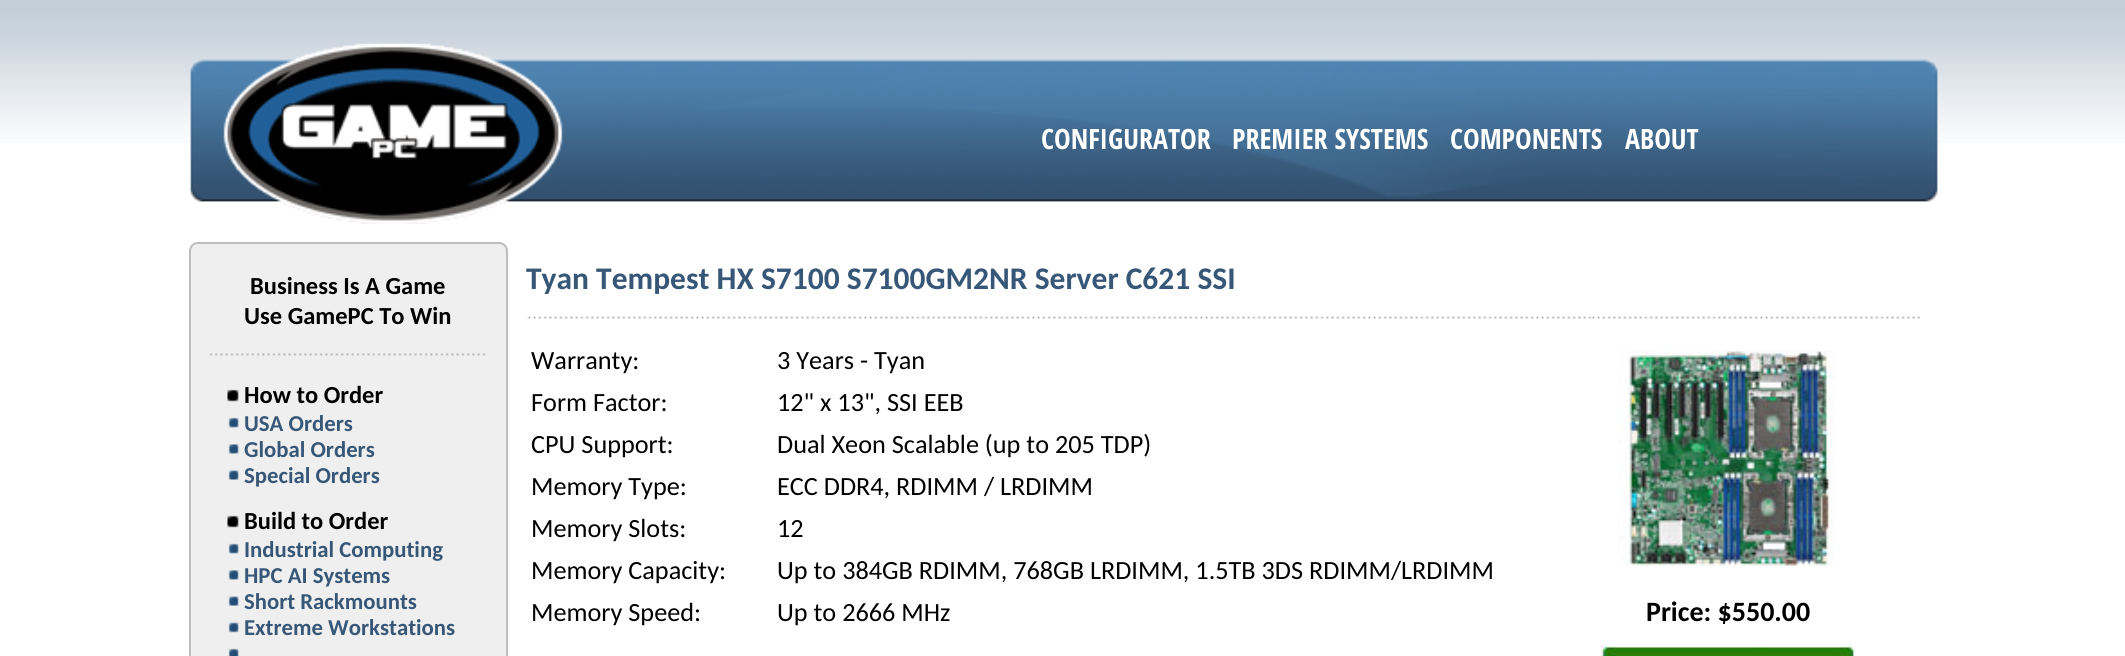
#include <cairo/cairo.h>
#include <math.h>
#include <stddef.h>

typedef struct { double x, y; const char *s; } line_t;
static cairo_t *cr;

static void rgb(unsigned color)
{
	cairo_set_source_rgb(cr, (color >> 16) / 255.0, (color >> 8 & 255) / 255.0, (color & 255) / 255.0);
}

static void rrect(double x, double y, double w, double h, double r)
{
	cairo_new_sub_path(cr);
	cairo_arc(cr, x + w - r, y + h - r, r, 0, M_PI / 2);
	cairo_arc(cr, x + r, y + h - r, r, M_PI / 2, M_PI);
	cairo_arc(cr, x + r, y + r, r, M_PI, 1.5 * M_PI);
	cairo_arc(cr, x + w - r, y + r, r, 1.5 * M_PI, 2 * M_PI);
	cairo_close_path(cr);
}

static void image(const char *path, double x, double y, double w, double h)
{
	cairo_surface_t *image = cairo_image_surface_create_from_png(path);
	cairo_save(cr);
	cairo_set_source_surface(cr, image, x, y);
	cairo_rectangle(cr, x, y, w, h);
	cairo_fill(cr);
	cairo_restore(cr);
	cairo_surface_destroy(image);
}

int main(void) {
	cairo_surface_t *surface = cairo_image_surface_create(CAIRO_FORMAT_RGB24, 2125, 656);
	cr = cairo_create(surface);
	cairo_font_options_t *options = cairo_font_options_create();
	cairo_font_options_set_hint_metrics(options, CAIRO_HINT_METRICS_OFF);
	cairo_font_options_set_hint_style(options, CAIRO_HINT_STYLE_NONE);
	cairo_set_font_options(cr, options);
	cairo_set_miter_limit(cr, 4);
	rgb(0xffffff);
	cairo_paint(cr);
	image("img/1.png", 0, 0, 2125, 143);
	image("img/2.png", 190, 43, 1748, 181);
	rgb(0xefefef);
	rrect(190, 243, 317, 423, 8);
	cairo_fill_preserve(cr);
	rgb(0xbdbdbd);
	cairo_stroke(cr);
	image("img/3.png", 209, 353, 277, 3);
	image("img/4.png", 227, 389, 12, 13);
	image("img/5.png", 228, 417, 11, 11);
	image("img/6.png", 228, 444, 11, 10);
	image("img/7.png", 228, 470, 11, 10);
	image("img/4.png", 227, 515, 12, 13);
	image("img/5.png", 228, 543, 11, 11);
	image("img/6.png", 228, 570, 11, 10);
	image("img/7.png", 228, 596, 11, 10);
	image("img/8.png", 228, 622, 11, 11);
	image("img/9.png", 228, 648, 11, 8);
	image("img/10.png", 526, 316, 1395, 3);
	image("img/11.png", 1618, 350, 216, 216);
	image("img/12.png", 1601, 645, 253, 11);
	cairo_select_font_face(cr, "Open Sans Condensed", CAIRO_FONT_SLANT_NORMAL, CAIRO_FONT_WEIGHT_BOLD);
	cairo_set_font_size(cr, 28);
	rgb(0xffffff);
	{
		static const line_t items[] = {
			{1041, 149, "CONFIGURATOR"},
			{1232, 149, "PREMIER SYSTEMS"},
			{1450, 149, "COMPONENTS"},
			{1625, 149, "ABOUT"},
		};
		for (size_t i = 0; i < sizeof items / sizeof *items; i++) {
			cairo_move_to(cr, items[i].x, items[i].y);
			cairo_show_text(cr, items[i].s);
		}
	}
	cairo_select_font_face(cr, "Carlito", CAIRO_FONT_SLANT_NORMAL, CAIRO_FONT_WEIGHT_BOLD);
	cairo_set_font_size(cr, 24.5);
	rgb(0x000000);
	{
		static const line_t items[] = {
			{250, 294, "Business Is A Game"},
			{244, 324, "Use GamePC To Win"},
			{244, 403, "How to Order"},
		};
		for (size_t i = 0; i < sizeof items / sizeof *items; i++) {
			cairo_move_to(cr, items[i].x, items[i].y);
			cairo_show_text(cr, items[i].s);
		}
	}
	cairo_set_font_size(cr, 22.75);
	rgb(0x365777);
	{
		static const line_t items[] = {
			{244, 431, "USA Orders"},
			{244, 457, "Global Orders"},
			{244, 483, "Special Orders"},
		};
		for (size_t i = 0; i < sizeof items / sizeof *items; i++) {
			cairo_move_to(cr, items[i].x, items[i].y);
			cairo_show_text(cr, items[i].s);
		}
	}
	cairo_set_font_size(cr, 24.5);
	rgb(0x000000);
	cairo_move_to(cr, 244, 529);
	cairo_show_text(cr, "Build to Order");
	cairo_set_font_size(cr, 22.75);
	rgb(0x365777);
	{
		static const line_t items[] = {
			{244, 557, "Industrial Computing"},
			{244, 583, "HPC AI Systems"},
			{244, 609, "Short Rackmounts"},
			{244, 635, "Extreme Workstations"},
		};
		for (size_t i = 0; i < sizeof items / sizeof *items; i++) {
			cairo_move_to(cr, items[i].x, items[i].y);
			cairo_show_text(cr, items[i].s);
		}
	}
	cairo_set_font_size(cr, 31.5);
	cairo_move_to(cr, 526, 289);
	cairo_show_text(cr, "Tyan Tempest HX S7100 S7100GM2NR Server C621 SSI");
	cairo_select_font_face(cr, "Carlito", CAIRO_FONT_SLANT_NORMAL, CAIRO_FONT_WEIGHT_NORMAL);
	cairo_set_font_size(cr, 26.25);
	rgb(0x000000);
	{
		static const line_t items[] = {
			{531, 369, "Warranty:"},
			{777, 369, "3 Years - Tyan"},
			{531, 411, "Form Factor:"},
			{777, 411, "12\" x 13\", SSI EEB"},
			{531, 453, "CPU Support:"},
			{777, 453, "Dual Xeon Scalable (up to 205 TDP)"},
			{531, 495, "Memory Type:"},
			{777, 495, "ECC DDR4, RDIMM / LRDIMM"},
			{531, 537, "Memory Slots:"},
			{777, 537, "12"},
			{531, 579, "Memory Capacity:"},
			{777, 579, "Up to 384GB RDIMM, 768GB LRDIMM, 1.5TB 3DS RDIMM/LRDIMM"},
			{531, 621, "Memory Speed:"},
			{777, 621, "Up to 2666 MHz"},
		};
		for (size_t i = 0; i < sizeof items / sizeof *items; i++) {
			cairo_move_to(cr, items[i].x, items[i].y);
			cairo_show_text(cr, items[i].s);
		}
	}
	cairo_select_font_face(cr, "Carlito", CAIRO_FONT_SLANT_NORMAL, CAIRO_FONT_WEIGHT_BOLD);
	cairo_set_font_size(cr, 28);
	cairo_move_to(cr, 1646, 621);
	cairo_show_text(cr, "Price: $550.00");
	cairo_surface_write_to_png(surface, "page.png");
	cairo_font_options_destroy(options);
	cairo_destroy(cr);
	cairo_surface_destroy(surface);
	return 0;
}
